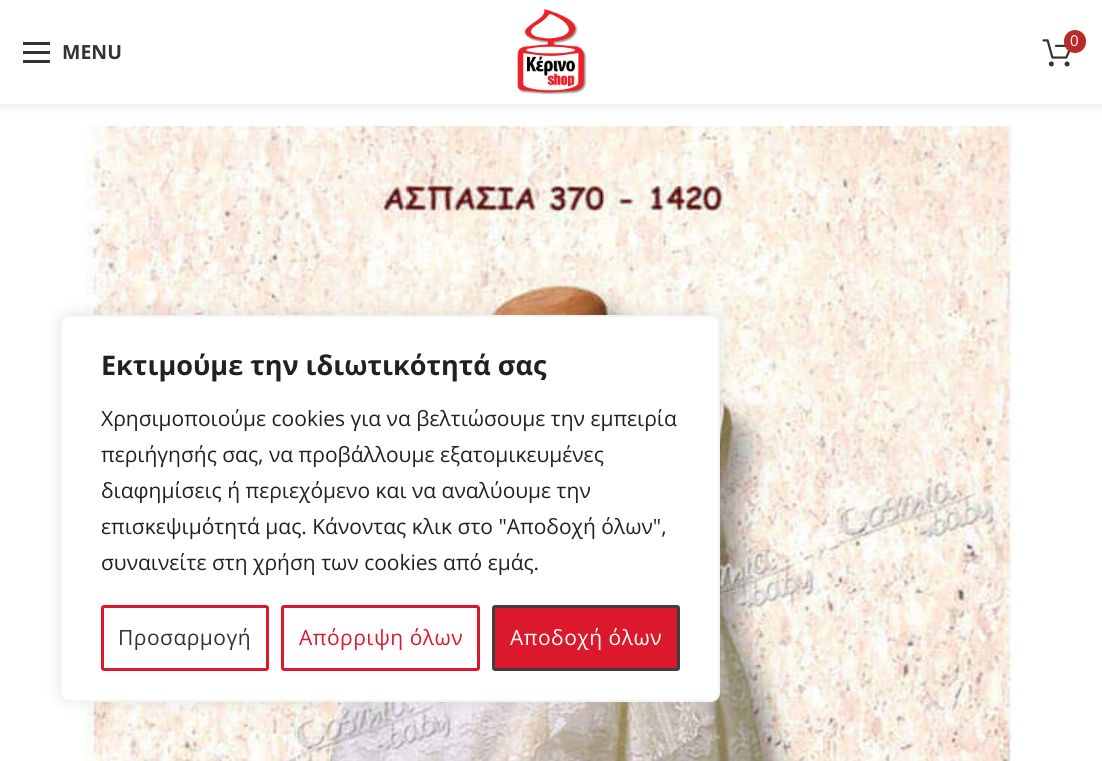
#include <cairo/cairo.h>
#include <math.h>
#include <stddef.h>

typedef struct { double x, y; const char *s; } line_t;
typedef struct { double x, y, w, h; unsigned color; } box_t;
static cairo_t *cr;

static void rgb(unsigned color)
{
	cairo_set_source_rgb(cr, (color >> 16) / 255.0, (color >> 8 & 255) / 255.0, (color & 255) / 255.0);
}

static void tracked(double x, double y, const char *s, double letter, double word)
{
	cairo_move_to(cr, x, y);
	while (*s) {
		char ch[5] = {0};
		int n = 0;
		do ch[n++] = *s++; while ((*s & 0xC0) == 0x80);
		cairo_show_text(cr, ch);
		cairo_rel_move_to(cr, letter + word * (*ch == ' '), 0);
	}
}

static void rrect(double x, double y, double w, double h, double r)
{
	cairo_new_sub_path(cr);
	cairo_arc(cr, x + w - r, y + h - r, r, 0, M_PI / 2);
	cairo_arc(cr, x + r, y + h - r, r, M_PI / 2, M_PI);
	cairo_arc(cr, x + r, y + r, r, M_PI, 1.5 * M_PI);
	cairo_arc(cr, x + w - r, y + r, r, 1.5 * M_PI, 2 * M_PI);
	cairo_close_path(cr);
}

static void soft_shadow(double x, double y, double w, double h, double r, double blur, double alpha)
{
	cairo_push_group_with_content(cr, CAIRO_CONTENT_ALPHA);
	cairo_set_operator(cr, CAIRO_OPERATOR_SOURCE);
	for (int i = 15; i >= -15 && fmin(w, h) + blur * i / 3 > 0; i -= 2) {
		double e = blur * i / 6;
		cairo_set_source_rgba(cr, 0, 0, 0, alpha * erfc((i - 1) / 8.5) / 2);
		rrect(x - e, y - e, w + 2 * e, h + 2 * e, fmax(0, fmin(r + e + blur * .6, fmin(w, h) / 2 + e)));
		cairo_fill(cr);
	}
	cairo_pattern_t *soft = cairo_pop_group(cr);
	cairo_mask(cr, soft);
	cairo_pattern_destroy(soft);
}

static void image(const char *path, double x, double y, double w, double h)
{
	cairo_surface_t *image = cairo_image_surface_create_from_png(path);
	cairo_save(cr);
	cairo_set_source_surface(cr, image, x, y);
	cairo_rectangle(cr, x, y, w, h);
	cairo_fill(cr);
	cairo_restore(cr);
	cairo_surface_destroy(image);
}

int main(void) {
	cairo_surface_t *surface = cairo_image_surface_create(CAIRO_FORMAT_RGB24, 1102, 761);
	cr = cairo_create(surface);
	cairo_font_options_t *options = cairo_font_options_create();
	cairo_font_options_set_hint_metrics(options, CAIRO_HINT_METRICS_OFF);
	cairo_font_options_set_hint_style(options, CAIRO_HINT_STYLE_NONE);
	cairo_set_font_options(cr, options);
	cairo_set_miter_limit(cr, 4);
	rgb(0xffffff);
	cairo_paint(cr);
	rgb(0x000000);
	soft_shadow(0, 2, 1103, 103, 0, 6, 0.1);
	rgb(0xffffff);
	cairo_rectangle(cr, 0, 0, 1102, 104);
	cairo_fill(cr);
	image("img/1.png", 517, 9, 70, 86);
	image("img/2.png", 1042, 39, 29, 28);
	rgb(0xba2a2a);
	rrect(1064, 30, 22, 23, 11);
	cairo_fill(cr);
	{
		static const box_t items[] = {
			{23, 51, 27, 3, 0x333333},
			{23, 42, 27, 3, 0x333333},
			{23, 60, 27, 3, 0x333333},
		};
		for (size_t i = 0; i < sizeof items / sizeof *items; i++) {
			rgb(items[i].color);
			cairo_rectangle(cr, items[i].x, items[i].y, items[i].w, items[i].h);
			cairo_fill(cr);
		}
	}
	image("img/3.png", 85, 126, 927, 635);
	rgb(0xacabab);
	soft_shadow(60, 314, 660, 387, 9, 7.5, 0.3);
	rgb(0xffffff);
	rrect(61, 316, 658, 385, 8);
	cairo_fill_preserve(cr);
	rgb(0xf4f4f4);
	cairo_stroke(cr);
	rrect(102.5, 606.5, 165, 63, 1.5);
	rgb(0xdc182d);
	cairo_set_line_width(cr, 3);
	cairo_stroke(cr);
	rrect(282.5, 606.5, 196, 63, 1.5);
	cairo_stroke(cr);
	rrect(493.5, 606.5, 185, 63, 1.5);
	cairo_fill_preserve(cr);
	rgb(0x3f3f40);
	cairo_stroke(cr);
	cairo_select_font_face(cr, "Open Sans", CAIRO_FONT_SLANT_NORMAL, CAIRO_FONT_WEIGHT_NORMAL);
	cairo_set_font_size(cr, 15);
	rgb(0xffffff);
	cairo_move_to(cr, 1070, 46);
	cairo_show_text(cr, "0");
	cairo_select_font_face(cr, "Open Sans", CAIRO_FONT_SLANT_NORMAL, CAIRO_FONT_WEIGHT_BOLD);
	cairo_set_font_size(cr, 19.5);
	rgb(0x333333);
	cairo_move_to(cr, 62, 59);
	cairo_show_text(cr, "MENU");
	cairo_set_font_size(cr, 27);
	rgb(0x212121);
	cairo_move_to(cr, 101, 375);
	cairo_show_text(cr, "Εκτιμούμε την ιδιωτικότητά σας");
	cairo_select_font_face(cr, "Open Sans", CAIRO_FONT_SLANT_NORMAL, CAIRO_FONT_WEIGHT_NORMAL);
	cairo_set_font_size(cr, 21);
	{
		static const line_t items[] = {
			{101, 426, "Χρησιμοποιούμε cookies για να βελτιώσουμε την εμπειρία"},
			{101, 462, "περιήγησής σας, να προβάλλουμε εξατομικευμένες"},
			{101, 498, "διαφημίσεις ή περιεχόμενο και να αναλύουμε την"},
			{101, 534, "επισκεψιμότητά μας. Κάνοντας κλικ στο \"Αποδοχή όλων\","},
			{101, 570, "συναινείτε στη χρήση των cookies από εμάς."},
		};
		for (size_t i = 0; i < sizeof items / sizeof *items; i++) {
			cairo_move_to(cr, items[i].x, items[i].y);
			cairo_show_text(cr, items[i].s);
		}
	}
	rgb(0x333333);
	tracked(118, 645, "Προσαρμογή", 0.5, 0);
	rgb(0xdc182d);
	tracked(299, 645, "Απόρριψη όλων", 0.5, 0);
	rgb(0xffffff);
	tracked(510, 645, "Αποδοχή όλων", 0.5, 0);
	cairo_surface_write_to_png(surface, "page.png");
	cairo_font_options_destroy(options);
	cairo_destroy(cr);
	cairo_surface_destroy(surface);
	return 0;
}
